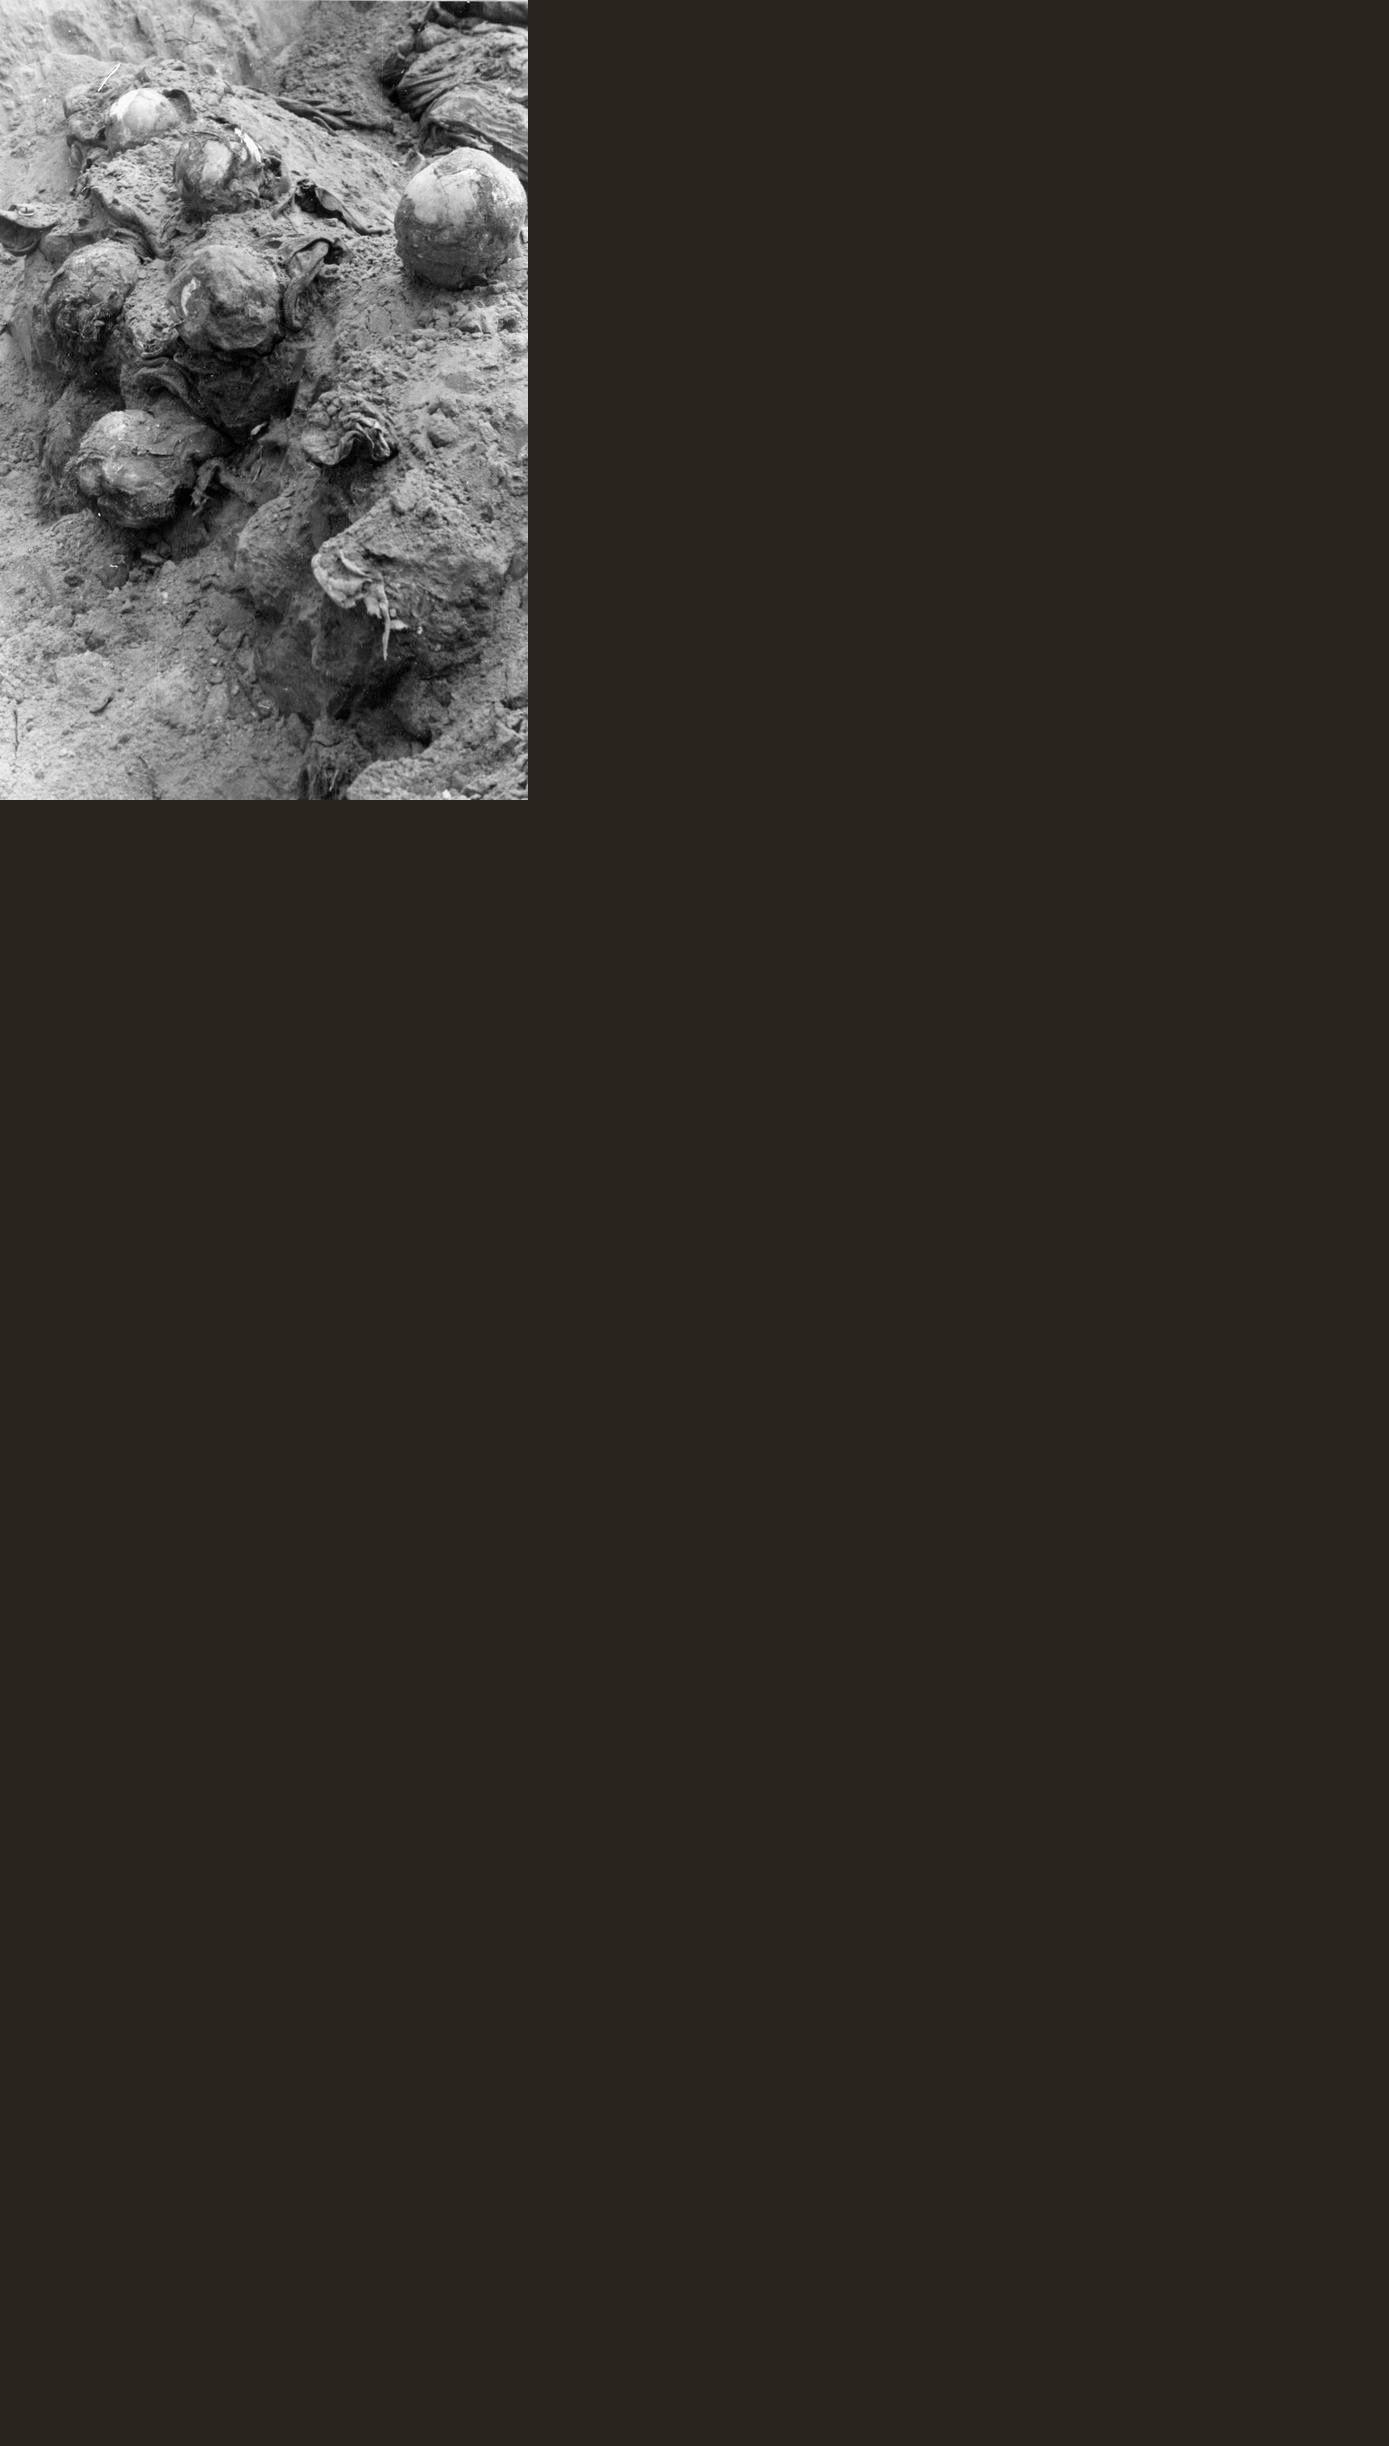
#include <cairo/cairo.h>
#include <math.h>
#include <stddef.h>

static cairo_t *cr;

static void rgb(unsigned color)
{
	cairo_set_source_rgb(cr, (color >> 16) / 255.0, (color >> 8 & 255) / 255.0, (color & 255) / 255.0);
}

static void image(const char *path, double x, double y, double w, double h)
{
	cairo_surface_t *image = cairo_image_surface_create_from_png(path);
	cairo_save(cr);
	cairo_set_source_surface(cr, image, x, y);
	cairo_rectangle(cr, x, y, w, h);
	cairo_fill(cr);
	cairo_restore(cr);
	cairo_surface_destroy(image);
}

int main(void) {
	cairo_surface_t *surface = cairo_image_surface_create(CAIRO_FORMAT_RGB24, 1389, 2446);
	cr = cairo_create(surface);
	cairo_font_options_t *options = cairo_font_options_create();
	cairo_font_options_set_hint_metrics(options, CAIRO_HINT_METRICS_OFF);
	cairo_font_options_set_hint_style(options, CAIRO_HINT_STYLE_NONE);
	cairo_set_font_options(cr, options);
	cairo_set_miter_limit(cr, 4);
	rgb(0x29241e);
	cairo_paint(cr);
	image("img/1.png", 0, 0, 528, 800);
	cairo_surface_write_to_png(surface, "page.png");
	cairo_font_options_destroy(options);
	cairo_destroy(cr);
	cairo_surface_destroy(surface);
	return 0;
}
